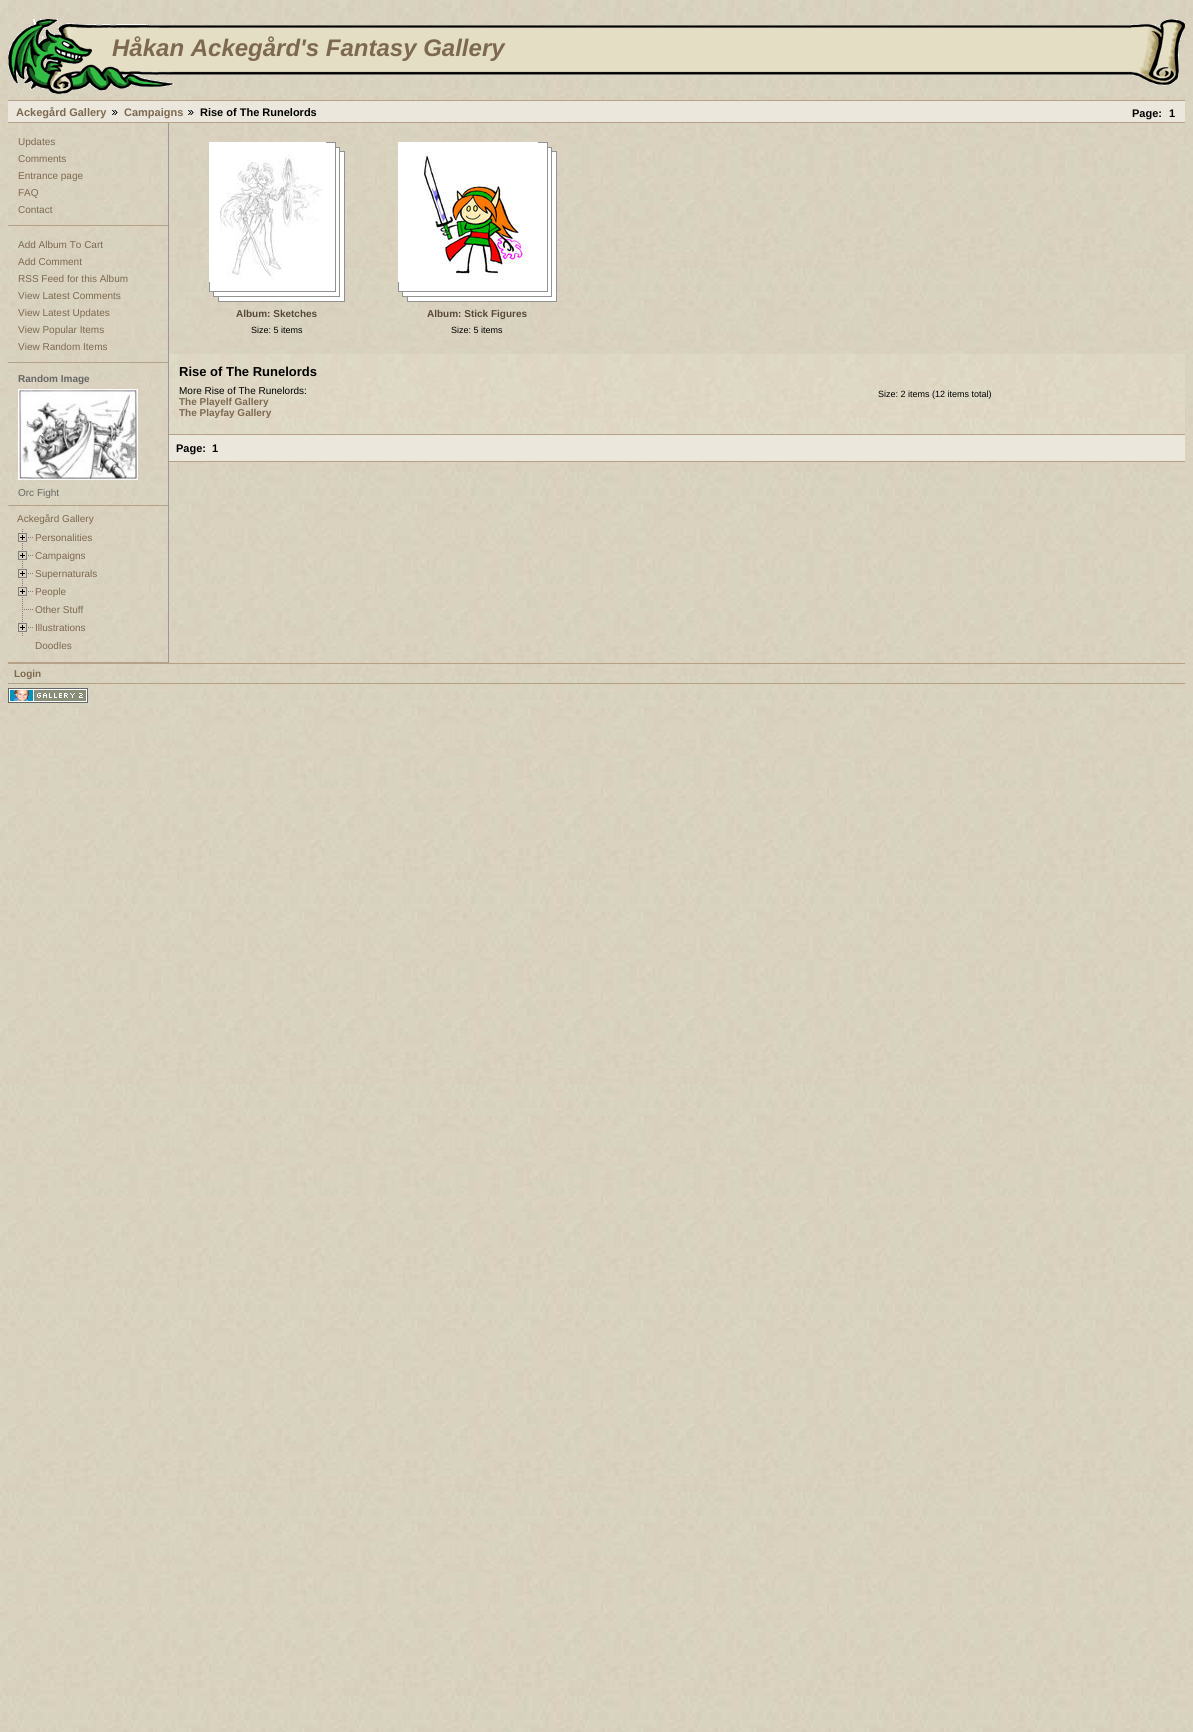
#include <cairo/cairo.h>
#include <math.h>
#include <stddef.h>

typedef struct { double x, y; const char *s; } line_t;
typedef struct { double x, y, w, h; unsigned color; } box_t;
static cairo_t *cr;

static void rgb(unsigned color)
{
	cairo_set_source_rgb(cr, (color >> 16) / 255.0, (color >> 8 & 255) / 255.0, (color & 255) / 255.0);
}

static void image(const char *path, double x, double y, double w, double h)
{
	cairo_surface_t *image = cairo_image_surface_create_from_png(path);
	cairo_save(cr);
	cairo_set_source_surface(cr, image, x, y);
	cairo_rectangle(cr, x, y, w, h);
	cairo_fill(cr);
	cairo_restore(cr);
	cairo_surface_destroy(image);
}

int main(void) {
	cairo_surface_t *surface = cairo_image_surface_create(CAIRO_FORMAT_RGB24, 1193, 1732);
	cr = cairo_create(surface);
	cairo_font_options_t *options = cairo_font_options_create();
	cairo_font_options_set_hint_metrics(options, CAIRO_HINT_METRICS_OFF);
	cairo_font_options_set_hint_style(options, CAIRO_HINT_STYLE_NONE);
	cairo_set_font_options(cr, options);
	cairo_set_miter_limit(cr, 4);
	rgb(0xffffff);
	cairo_paint(cr);
	image("img/1.png", 0, 0, 1193, 1732);
	image("img/2.png", 8, 19, 84, 75);
	image("img/3.png", 92, 25, 1039, 9);
	image("img/4.png", 92, 24, 80, 4);
	image("img/5.png", 1131, 19, 54, 67);
	rgb(0xe4dec4);
	cairo_rectangle(cr, 92, 34, 1039, 30);
	cairo_fill(cr);
	image("img/6.png", 174, 64, 957, 11);
	image("img/7.png", 92, 64, 82, 27);
	{
		static const box_t items[] = {
			{8, 101, 1177, 21, 0xebe7dc},
			{8, 100, 1177, 1, 0xb4a188},
			{8, 122, 1177, 1, 0xb4a188},
		};
		for (size_t i = 0; i < sizeof items / sizeof *items; i++) {
			rgb(items[i].color);
			cairo_rectangle(cr, items[i].x, items[i].y, items[i].w, items[i].h);
			cairo_fill(cr);
		}
	}
	image("img/8.png", 112, 110, 6, 5);
	image("img/8.png", 188, 110, 6, 5);
	{
		static const box_t items[] = {
			{168, 123, 1, 540, 0x999999},
			{8, 225, 160, 1, 0xb4a188},
			{8, 362, 160, 1, 0xb4a188},
			{8, 505, 160, 1, 0xb4a188},
		};
		for (size_t i = 0; i < sizeof items / sizeof *items; i++) {
			rgb(items[i].color);
			cairo_rectangle(cr, items[i].x, items[i].y, items[i].w, items[i].h);
			cairo_fill(cr);
		}
	}
	image("img/9.png", 18, 389, 120, 91);
	cairo_rectangle(cr, 8, 662, 160, 1);
	cairo_fill(cr);
	image("img/10.png", 18, 529, 15, 17);
	image("img/11.png", 18, 547, 15, 17);
	image("img/12.png", 18, 565, 15, 17);
	image("img/13.png", 18, 583, 15, 17);
	image("img/14.png", 22, 601, 11, 17);
	image("img/15.png", 18, 619, 15, 17);
	rgb(0xffffff);
	cairo_rectangle(cr, 209, 142, 117, 10);
	cairo_fill(cr);
	image("img/16.png", 326, 142, 19, 10);
	cairo_rectangle(cr, 209, 152, 10, 130);
	cairo_fill(cr);
	image("img/17.png", 219, 152, 107, 130);
	image("img/18.png", 326, 152, 19, 130);
	image("img/19.png", 209, 282, 10, 20);
	image("img/20.png", 219, 282, 107, 20);
	image("img/21.png", 326, 282, 19, 20);
	cairo_rectangle(cr, 398, 142, 140, 10);
	cairo_fill(cr);
	image("img/22.png", 538, 142, 19, 10);
	cairo_rectangle(cr, 398, 152, 10, 130);
	cairo_fill(cr);
	image("img/23.png", 408, 152, 130, 130);
	image("img/18.png", 538, 152, 19, 130);
	image("img/24.png", 398, 282, 10, 20);
	image("img/25.png", 408, 282, 130, 20);
	image("img/21.png", 538, 282, 19, 20);
	image("img/26.png", 169, 354, 1016, 80);
	{
		static const box_t items[] = {
			{169, 434, 1016, 1, 0xb4a188},
			{169, 435, 1016, 26, 0xebe7dc},
			{169, 461, 1016, 1, 0xb4a188},
			{8, 663, 1177, 1, 0xb4a188},
			{8, 683, 1177, 1, 0xb4a188},
		};
		for (size_t i = 0; i < sizeof items / sizeof *items; i++) {
			rgb(items[i].color);
			cairo_rectangle(cr, items[i].x, items[i].y, items[i].w, items[i].h);
			cairo_fill(cr);
		}
	}
	image("img/27.png", 8, 688, 80, 15);
	cairo_select_font_face(cr, "Liberation Sans", CAIRO_FONT_SLANT_ITALIC, CAIRO_FONT_WEIGHT_BOLD);
	cairo_set_font_size(cr, 24);
	rgb(0x7d6850);
	cairo_move_to(cr, 112, 56);
	cairo_show_text(cr, "Håkan Ackegård's Fantasy Gallery");
	cairo_select_font_face(cr, "Liberation Sans", CAIRO_FONT_SLANT_NORMAL, CAIRO_FONT_WEIGHT_BOLD);
	cairo_set_font_size(cr, 11);
	cairo_move_to(cr, 16, 116);
	cairo_show_text(cr, "Ackegård Gallery");
	cairo_move_to(cr, 124, 116);
	cairo_show_text(cr, "Campaigns");
	rgb(0x000000);
	{
		static const line_t items[] = {
			{200, 116, "Rise of The Runelords"},
			{1132, 117, "Page:"},
			{1169, 117, "1"},
		};
		for (size_t i = 0; i < sizeof items / sizeof *items; i++) {
			cairo_move_to(cr, items[i].x, items[i].y);
			cairo_show_text(cr, items[i].s);
		}
	}
	cairo_select_font_face(cr, "Liberation Sans", CAIRO_FONT_SLANT_NORMAL, CAIRO_FONT_WEIGHT_NORMAL);
	cairo_set_font_size(cr, 10);
	rgb(0x7d6850);
	{
		static const line_t items[] = {
			{18, 145, "Updates"},
			{18, 162, "Comments"},
			{18, 179, "Entrance page"},
			{18, 196, "FAQ"},
			{18, 213, "Contact"},
			{18, 248, "Add Album To Cart"},
			{18, 265, "Add Comment"},
			{18, 282, "RSS Feed for this Album"},
			{18, 299, "View Latest Comments"},
			{18, 316, "View Latest Updates"},
			{18, 333, "View Popular Items"},
			{18, 350, "View Random Items"},
		};
		for (size_t i = 0; i < sizeof items / sizeof *items; i++) {
			cairo_move_to(cr, items[i].x, items[i].y);
			cairo_show_text(cr, items[i].s);
		}
	}
	cairo_select_font_face(cr, "Liberation Sans", CAIRO_FONT_SLANT_NORMAL, CAIRO_FONT_WEIGHT_BOLD);
	rgb(0x666666);
	cairo_move_to(cr, 18, 382);
	cairo_show_text(cr, "Random Image");
	cairo_select_font_face(cr, "Liberation Sans", CAIRO_FONT_SLANT_NORMAL, CAIRO_FONT_WEIGHT_NORMAL);
	cairo_move_to(cr, 18, 496);
	cairo_show_text(cr, "Orc Fight");
	rgb(0x7d6850);
	{
		static const line_t items[] = {
			{17, 522, "Ackegård Gallery"},
			{35, 541, "Personalities"},
			{35, 559, "Campaigns"},
			{35, 577, "Supernaturals"},
			{35, 595, "People"},
			{35, 613, "Other Stuff"},
			{35, 631, "Illustrations"},
			{35, 649, "Doodles"},
		};
		for (size_t i = 0; i < sizeof items / sizeof *items; i++) {
			cairo_move_to(cr, items[i].x, items[i].y);
			cairo_show_text(cr, items[i].s);
		}
	}
	cairo_select_font_face(cr, "Liberation Sans", CAIRO_FONT_SLANT_NORMAL, CAIRO_FONT_WEIGHT_BOLD);
	rgb(0x574837);
	cairo_move_to(cr, 236, 317);
	cairo_show_text(cr, "Album: Sketches");
	cairo_select_font_face(cr, "Liberation Sans", CAIRO_FONT_SLANT_NORMAL, CAIRO_FONT_WEIGHT_NORMAL);
	cairo_set_font_size(cr, 9);
	rgb(0x000000);
	cairo_move_to(cr, 251, 333);
	cairo_show_text(cr, "Size: 5 items");
	cairo_select_font_face(cr, "Liberation Sans", CAIRO_FONT_SLANT_NORMAL, CAIRO_FONT_WEIGHT_BOLD);
	cairo_set_font_size(cr, 10);
	rgb(0x574837);
	cairo_move_to(cr, 427, 317);
	cairo_show_text(cr, "Album: Stick Figures");
	cairo_select_font_face(cr, "Liberation Sans", CAIRO_FONT_SLANT_NORMAL, CAIRO_FONT_WEIGHT_NORMAL);
	cairo_set_font_size(cr, 9);
	rgb(0x000000);
	cairo_move_to(cr, 451, 333);
	cairo_show_text(cr, "Size: 5 items");
	cairo_select_font_face(cr, "Liberation Sans", CAIRO_FONT_SLANT_NORMAL, CAIRO_FONT_WEIGHT_BOLD);
	cairo_set_font_size(cr, 13);
	cairo_move_to(cr, 179, 376);
	cairo_show_text(cr, "Rise of The Runelords");
	cairo_select_font_face(cr, "Liberation Sans", CAIRO_FONT_SLANT_NORMAL, CAIRO_FONT_WEIGHT_NORMAL);
	cairo_set_font_size(cr, 10);
	cairo_move_to(cr, 179, 394);
	cairo_show_text(cr, "More Rise of The Runelords:");
	cairo_select_font_face(cr, "Liberation Sans", CAIRO_FONT_SLANT_NORMAL, CAIRO_FONT_WEIGHT_BOLD);
	rgb(0x7d6850);
	cairo_move_to(cr, 179, 405);
	cairo_show_text(cr, "The Playelf Gallery");
	cairo_move_to(cr, 179, 416);
	cairo_show_text(cr, "The Playfay Gallery");
	cairo_select_font_face(cr, "Liberation Sans", CAIRO_FONT_SLANT_NORMAL, CAIRO_FONT_WEIGHT_NORMAL);
	cairo_set_font_size(cr, 9);
	rgb(0x000000);
	cairo_move_to(cr, 878, 397);
	cairo_show_text(cr, "Size: 2 items (12 items total)");
	cairo_select_font_face(cr, "Liberation Sans", CAIRO_FONT_SLANT_NORMAL, CAIRO_FONT_WEIGHT_BOLD);
	cairo_set_font_size(cr, 11);
	cairo_move_to(cr, 176, 452);
	cairo_show_text(cr, "Page:");
	cairo_move_to(cr, 212, 452);
	cairo_show_text(cr, "1");
	cairo_set_font_size(cr, 10);
	rgb(0x7d6850);
	cairo_move_to(cr, 14, 677);
	cairo_show_text(cr, "Login");
	cairo_surface_write_to_png(surface, "page.png");
	cairo_font_options_destroy(options);
	cairo_destroy(cr);
	cairo_surface_destroy(surface);
	return 0;
}
